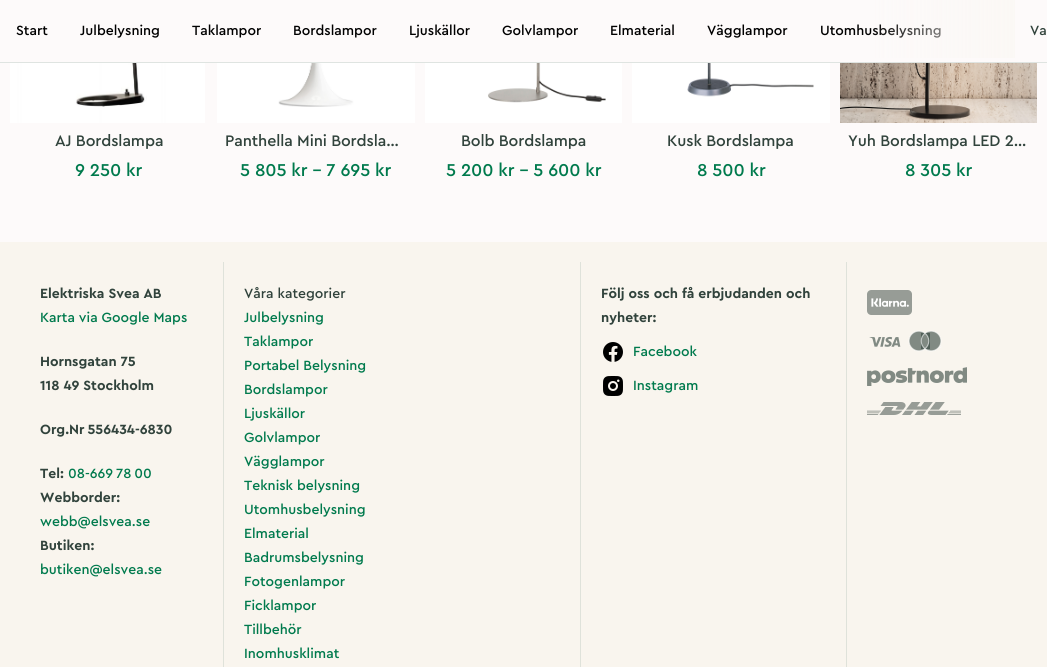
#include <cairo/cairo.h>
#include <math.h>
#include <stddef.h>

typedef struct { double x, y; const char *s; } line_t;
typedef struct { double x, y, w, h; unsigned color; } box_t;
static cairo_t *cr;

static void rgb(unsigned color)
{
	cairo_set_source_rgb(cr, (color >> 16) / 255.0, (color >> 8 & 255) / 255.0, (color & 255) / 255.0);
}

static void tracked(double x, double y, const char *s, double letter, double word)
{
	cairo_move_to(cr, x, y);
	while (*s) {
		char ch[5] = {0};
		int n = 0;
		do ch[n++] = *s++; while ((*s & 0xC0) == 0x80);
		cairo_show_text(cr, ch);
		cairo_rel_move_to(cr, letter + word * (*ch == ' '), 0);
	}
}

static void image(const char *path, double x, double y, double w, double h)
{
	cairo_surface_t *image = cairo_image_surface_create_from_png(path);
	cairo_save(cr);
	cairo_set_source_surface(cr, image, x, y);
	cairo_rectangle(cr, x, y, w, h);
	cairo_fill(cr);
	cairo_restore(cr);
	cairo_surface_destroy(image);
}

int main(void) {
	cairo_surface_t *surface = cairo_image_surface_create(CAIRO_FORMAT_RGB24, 1047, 667);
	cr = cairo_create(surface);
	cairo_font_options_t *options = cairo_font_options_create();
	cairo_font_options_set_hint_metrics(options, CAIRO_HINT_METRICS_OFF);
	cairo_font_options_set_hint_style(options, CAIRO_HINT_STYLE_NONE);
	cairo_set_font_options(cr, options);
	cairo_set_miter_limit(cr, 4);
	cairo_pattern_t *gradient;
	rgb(0xfdfafa);
	cairo_paint(cr);
	rgb(0xdfe4e1);
	cairo_rectangle(cr, 0, 62, 1047, 1);
	cairo_fill(cr);
	image("img/1.png", 10, 63, 195, 60);
	image("img/2.png", 217, 63, 198, 60);
	image("img/3.png", 425, 63, 197, 60);
	image("img/4.png", 632, 63, 198, 60);
	image("img/5.png", 840, 63, 197, 60);
	{
		static const box_t items[] = {
			{0, 242, 1047, 425, 0xf9f5ee},
			{223, 262, 1, 405, 0xdfe2da},
			{580, 262, 1, 405, 0xdfe2da},
		};
		for (size_t i = 0; i < sizeof items / sizeof *items; i++) {
			rgb(items[i].color);
			cairo_rectangle(cr, items[i].x, items[i].y, items[i].w, items[i].h);
			cairo_fill(cr);
		}
	}
	image("img/6.png", 603, 342, 20, 20);
	image("img/7.png", 603, 376, 20, 20);
	cairo_rectangle(cr, 846, 262, 1, 405);
	cairo_fill(cr);
	image("img/8.png", 867, 290, 45, 25);
	image("img/9.png", 869, 336, 32, 11);
	image("img/10.png", 908, 330, 34, 22);
	image("img/11.png", 867, 367, 100, 19);
	image("img/12.png", 867, 402, 94, 13);
	cairo_select_font_face(cr, "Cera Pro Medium", CAIRO_FONT_SLANT_NORMAL, CAIRO_FONT_WEIGHT_NORMAL);
	cairo_set_font_size(cr, 14);
	rgb(0x000000);
	{
		static const line_t items[] = {
			{16, 35, "Start"},
			{80, 35, "Julbelysning"},
			{192, 35, "Taklampor"},
			{293, 35, "Bordslampor"},
			{409, 35, "Ljuskällor"},
			{502, 35, "Golvlampor"},
			{610, 35, "Elmaterial"},
			{707, 35, "Vägglampor"},
			{820, 35, "Utomhusbelysning"},
		};
		for (size_t i = 0; i < sizeof items / sizeof *items; i++) {
			cairo_move_to(cr, items[i].x, items[i].y);
			cairo_show_text(cr, items[i].s);
		}
	}
	gradient = cairo_pattern_create_linear(870, 25, 1015, 25);
	cairo_pattern_add_color_stop_rgba(gradient, 0, 0.984, 0.973, 0.961, 0);
	cairo_pattern_add_color_stop_rgba(gradient, 1, 0.984, 0.973, 0.961, 1);
	cairo_set_source(cr, gradient);
	cairo_pattern_destroy(gradient);
	cairo_rectangle(cr, 873, 0, 142, 58);
	cairo_fill(cr);
	rgb(0x31433c);
	cairo_move_to(cr, 1030, 35);
	cairo_show_text(cr, "Va");
	cairo_set_font_size(cr, 16);
	tracked(55, 146, "AJ Bordslampa", -0.1, 0);
	cairo_set_font_size(cr, 18);
	rgb(0x007a4d);
	tracked(75, 176, "9 250 kr", -0.1, 0);
	cairo_set_font_size(cr, 16);
	rgb(0x31433c);
	tracked(225, 146, "Panthella Mini Bordsla…", -0.1, 0);
	cairo_set_font_size(cr, 18);
	rgb(0x007a4d);
	tracked(240, 176, "5 805 kr – 7 695 kr", -0.1, 0);
	cairo_set_font_size(cr, 16);
	rgb(0x31433c);
	tracked(461, 146, "Bolb Bordslampa", -0.1, 0);
	cairo_set_font_size(cr, 18);
	rgb(0x007a4d);
	tracked(446, 176, "5 200 kr – 5 600 kr", -0.1, 0);
	cairo_set_font_size(cr, 16);
	rgb(0x31433c);
	tracked(667, 146, "Kusk Bordslampa", -0.1, 0);
	cairo_set_font_size(cr, 18);
	rgb(0x007a4d);
	tracked(697, 176, "8 500 kr", -0.1, 0);
	cairo_set_font_size(cr, 16);
	rgb(0x31433c);
	tracked(848, 146, "Yuh Bordslampa LED 2…", -0.1, 0);
	cairo_set_font_size(cr, 18);
	rgb(0x007a4d);
	tracked(905, 176, "8 305 kr", -0.1, 0);
	cairo_select_font_face(cr, "Cera Pro", CAIRO_FONT_SLANT_NORMAL, CAIRO_FONT_WEIGHT_BOLD);
	cairo_set_font_size(cr, 14);
	rgb(0x31433c);
	cairo_move_to(cr, 40, 298);
	cairo_show_text(cr, "Elektriska Svea AB");
	cairo_select_font_face(cr, "Cera Pro Medium", CAIRO_FONT_SLANT_NORMAL, CAIRO_FONT_WEIGHT_NORMAL);
	rgb(0x007a4d);
	cairo_move_to(cr, 40, 322);
	cairo_show_text(cr, "Karta via Google Maps");
	cairo_select_font_face(cr, "Cera Pro", CAIRO_FONT_SLANT_NORMAL, CAIRO_FONT_WEIGHT_BOLD);
	rgb(0x31433c);
	cairo_move_to(cr, 40, 366);
	cairo_show_text(cr, "Hornsgatan 75");
	cairo_move_to(cr, 40, 390);
	cairo_show_text(cr, "118 49 Stockholm");
	tracked(40, 434, "Org.Nr 556434-6830", 0, -1);
	cairo_move_to(cr, 40, 478);
	cairo_show_text(cr, "Tel:");
	cairo_select_font_face(cr, "Cera Pro Medium", CAIRO_FONT_SLANT_NORMAL, CAIRO_FONT_WEIGHT_NORMAL);
	rgb(0x007a4d);
	tracked(68, 478, "08-669 78 00", 0, -1);
	cairo_select_font_face(cr, "Cera Pro", CAIRO_FONT_SLANT_NORMAL, CAIRO_FONT_WEIGHT_BOLD);
	rgb(0x31433c);
	cairo_move_to(cr, 40, 502);
	cairo_show_text(cr, "Webborder:");
	cairo_select_font_face(cr, "Cera Pro Medium", CAIRO_FONT_SLANT_NORMAL, CAIRO_FONT_WEIGHT_NORMAL);
	rgb(0x007a4d);
	cairo_move_to(cr, 40, 526);
	cairo_show_text(cr, "webb@elsvea.se");
	cairo_select_font_face(cr, "Cera Pro", CAIRO_FONT_SLANT_NORMAL, CAIRO_FONT_WEIGHT_BOLD);
	rgb(0x31433c);
	cairo_move_to(cr, 40, 550);
	cairo_show_text(cr, "Butiken:");
	cairo_select_font_face(cr, "Cera Pro Medium", CAIRO_FONT_SLANT_NORMAL, CAIRO_FONT_WEIGHT_NORMAL);
	rgb(0x007a4d);
	cairo_move_to(cr, 40, 574);
	cairo_show_text(cr, "butiken@elsvea.se");
	rgb(0x31433c);
	cairo_move_to(cr, 244, 298);
	cairo_show_text(cr, "Våra kategorier");
	rgb(0x007a4d);
	{
		static const line_t items[] = {
			{244, 322, "Julbelysning"},
			{244, 346, "Taklampor"},
			{244, 370, "Portabel Belysning"},
			{244, 394, "Bordslampor"},
			{244, 418, "Ljuskällor"},
			{244, 442, "Golvlampor"},
			{244, 466, "Vägglampor"},
			{244, 490, "Teknisk belysning"},
			{244, 514, "Utomhusbelysning"},
			{244, 538, "Elmaterial"},
			{244, 562, "Badrumsbelysning"},
			{244, 586, "Fotogenlampor"},
			{244, 610, "Ficklampor"},
			{244, 634, "Tillbehör"},
			{244, 658, "Inomhusklimat"},
		};
		for (size_t i = 0; i < sizeof items / sizeof *items; i++) {
			cairo_move_to(cr, items[i].x, items[i].y);
			cairo_show_text(cr, items[i].s);
		}
	}
	cairo_select_font_face(cr, "Cera Pro", CAIRO_FONT_SLANT_NORMAL, CAIRO_FONT_WEIGHT_BOLD);
	rgb(0x31433c);
	cairo_move_to(cr, 601, 298);
	cairo_show_text(cr, "Följ oss och få erbjudanden och");
	cairo_move_to(cr, 601, 322);
	cairo_show_text(cr, "nyheter:");
	cairo_select_font_face(cr, "Cera Pro Medium", CAIRO_FONT_SLANT_NORMAL, CAIRO_FONT_WEIGHT_NORMAL);
	rgb(0x007a4d);
	cairo_move_to(cr, 633, 356);
	cairo_show_text(cr, "Facebook");
	cairo_move_to(cr, 633, 390);
	cairo_show_text(cr, "Instagram");
	cairo_surface_write_to_png(surface, "page.png");
	cairo_font_options_destroy(options);
	cairo_destroy(cr);
	cairo_surface_destroy(surface);
	return 0;
}
